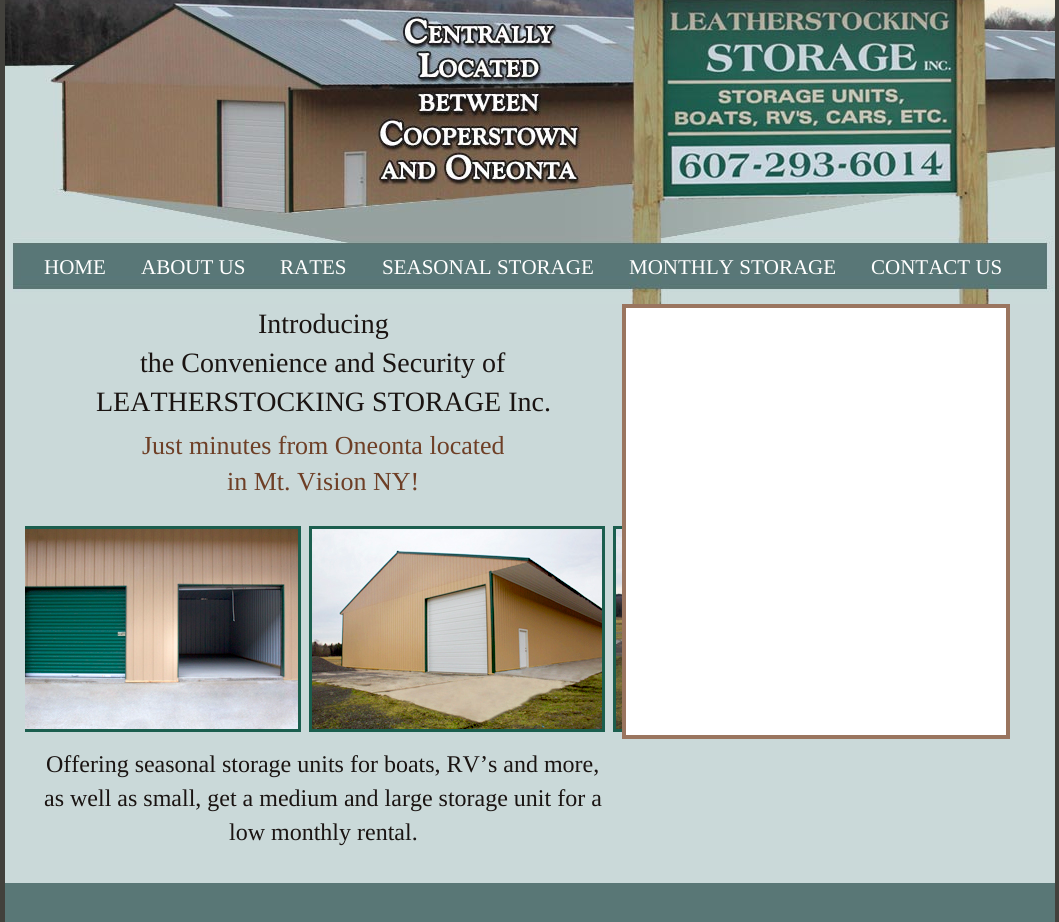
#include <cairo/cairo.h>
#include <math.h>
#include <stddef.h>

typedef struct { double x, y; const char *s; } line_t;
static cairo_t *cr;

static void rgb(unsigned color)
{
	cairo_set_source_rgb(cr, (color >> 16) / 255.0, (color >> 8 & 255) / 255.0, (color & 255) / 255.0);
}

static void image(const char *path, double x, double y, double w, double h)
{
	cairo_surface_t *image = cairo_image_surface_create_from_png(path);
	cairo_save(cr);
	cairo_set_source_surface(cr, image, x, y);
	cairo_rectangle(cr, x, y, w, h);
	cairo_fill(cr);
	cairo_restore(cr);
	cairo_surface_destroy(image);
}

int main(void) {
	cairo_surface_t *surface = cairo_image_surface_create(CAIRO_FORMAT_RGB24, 1059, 922);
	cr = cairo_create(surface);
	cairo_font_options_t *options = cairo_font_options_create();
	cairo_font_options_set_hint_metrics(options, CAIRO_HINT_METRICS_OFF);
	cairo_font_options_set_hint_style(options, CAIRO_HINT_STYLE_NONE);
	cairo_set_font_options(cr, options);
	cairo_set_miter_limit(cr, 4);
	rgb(0x42413c);
	cairo_paint(cr);
	rgb(0xcad9d9);
	cairo_rectangle(cr, 5, 304, 1050, 579);
	cairo_fill(cr);
	image("img/1.png", 5, 0, 1050, 304);
	cairo_save(cr);
	cairo_rectangle(cr, 25, 526, 597, 206);
	cairo_clip(cr);
	cairo_rectangle(cr, 6.5, 527.5, 293, 203);
	rgb(0x1b5e4e);
	cairo_set_line_width(cr, 3);
	cairo_stroke(cr);
	cairo_restore(cr);
	image("img/2.png", 25, 529, 273, 200);
	cairo_rectangle(cr, 310.5, 527.5, 293, 203);
	rgb(0x1b5e4e);
	cairo_set_line_width(cr, 3);
	cairo_stroke(cr);
	image("img/3.png", 312, 529, 290, 200);
	rgb(0xffffff);
	cairo_rectangle(cr, 624, 306, 384, 431);
	cairo_fill_preserve(cr);
	rgb(0x9a755f);
	cairo_set_line_width(cr, 4);
	cairo_stroke(cr);
	cairo_save(cr);
	cairo_rectangle(cr, 25, 526, 597, 206);
	cairo_clip(cr);
	cairo_rectangle(cr, 614.5, 527.5, 293, 203);
	rgb(0x1b5e4e);
	cairo_set_line_width(cr, 3);
	cairo_stroke(cr);
	cairo_restore(cr);
	image("img/4.png", 616, 529, 6, 200);
	rgb(0x597776);
	cairo_rectangle(cr, 5, 883, 1050, 39);
	cairo_fill(cr);
	cairo_select_font_face(cr, "Liberation Serif", CAIRO_FONT_SLANT_NORMAL, CAIRO_FONT_WEIGHT_NORMAL);
	cairo_set_font_size(cr, 21);
	rgb(0xffffff);
	{
		static const line_t items[] = {
			{44, 274, "HOME"},
			{141, 274, "ABOUT US"},
			{280, 274, "RATES"},
			{382, 274, "SEASONAL STORAGE"},
			{629, 274, "MONTHLY STORAGE"},
			{871, 274, "CONTACT US"},
		};
		for (size_t i = 0; i < sizeof items / sizeof *items; i++) {
			cairo_move_to(cr, items[i].x, items[i].y);
			cairo_show_text(cr, items[i].s);
		}
	}
	cairo_set_font_size(cr, 28);
	rgb(0x1a1412);
	{
		static const line_t items[] = {
			{258, 333, "Introducing"},
			{140, 372, "the Convenience and Security of"},
			{96, 411, "LEATHERSTOCKING STORAGE Inc."},
		};
		for (size_t i = 0; i < sizeof items / sizeof *items; i++) {
			cairo_move_to(cr, items[i].x, items[i].y);
			cairo_show_text(cr, items[i].s);
		}
	}
	cairo_set_font_size(cr, 26);
	rgb(0x6e3f26);
	cairo_move_to(cr, 142, 454);
	cairo_show_text(cr, "Just minutes from Oneonta located");
	cairo_move_to(cr, 227, 490);
	cairo_show_text(cr, "in Mt. Vision NY!");
	cairo_set_font_size(cr, 24);
	rgb(0x1a1412);
	{
		static const line_t items[] = {
			{46, 772, "Offering seasonal storage units for boats, RV’s and more,"},
			{44, 806, "as well as small, get a medium and large storage unit for a"},
			{229, 840, "low monthly rental."},
		};
		for (size_t i = 0; i < sizeof items / sizeof *items; i++) {
			cairo_move_to(cr, items[i].x, items[i].y);
			cairo_show_text(cr, items[i].s);
		}
	}
	cairo_surface_write_to_png(surface, "page.png");
	cairo_font_options_destroy(options);
	cairo_destroy(cr);
	cairo_surface_destroy(surface);
	return 0;
}
